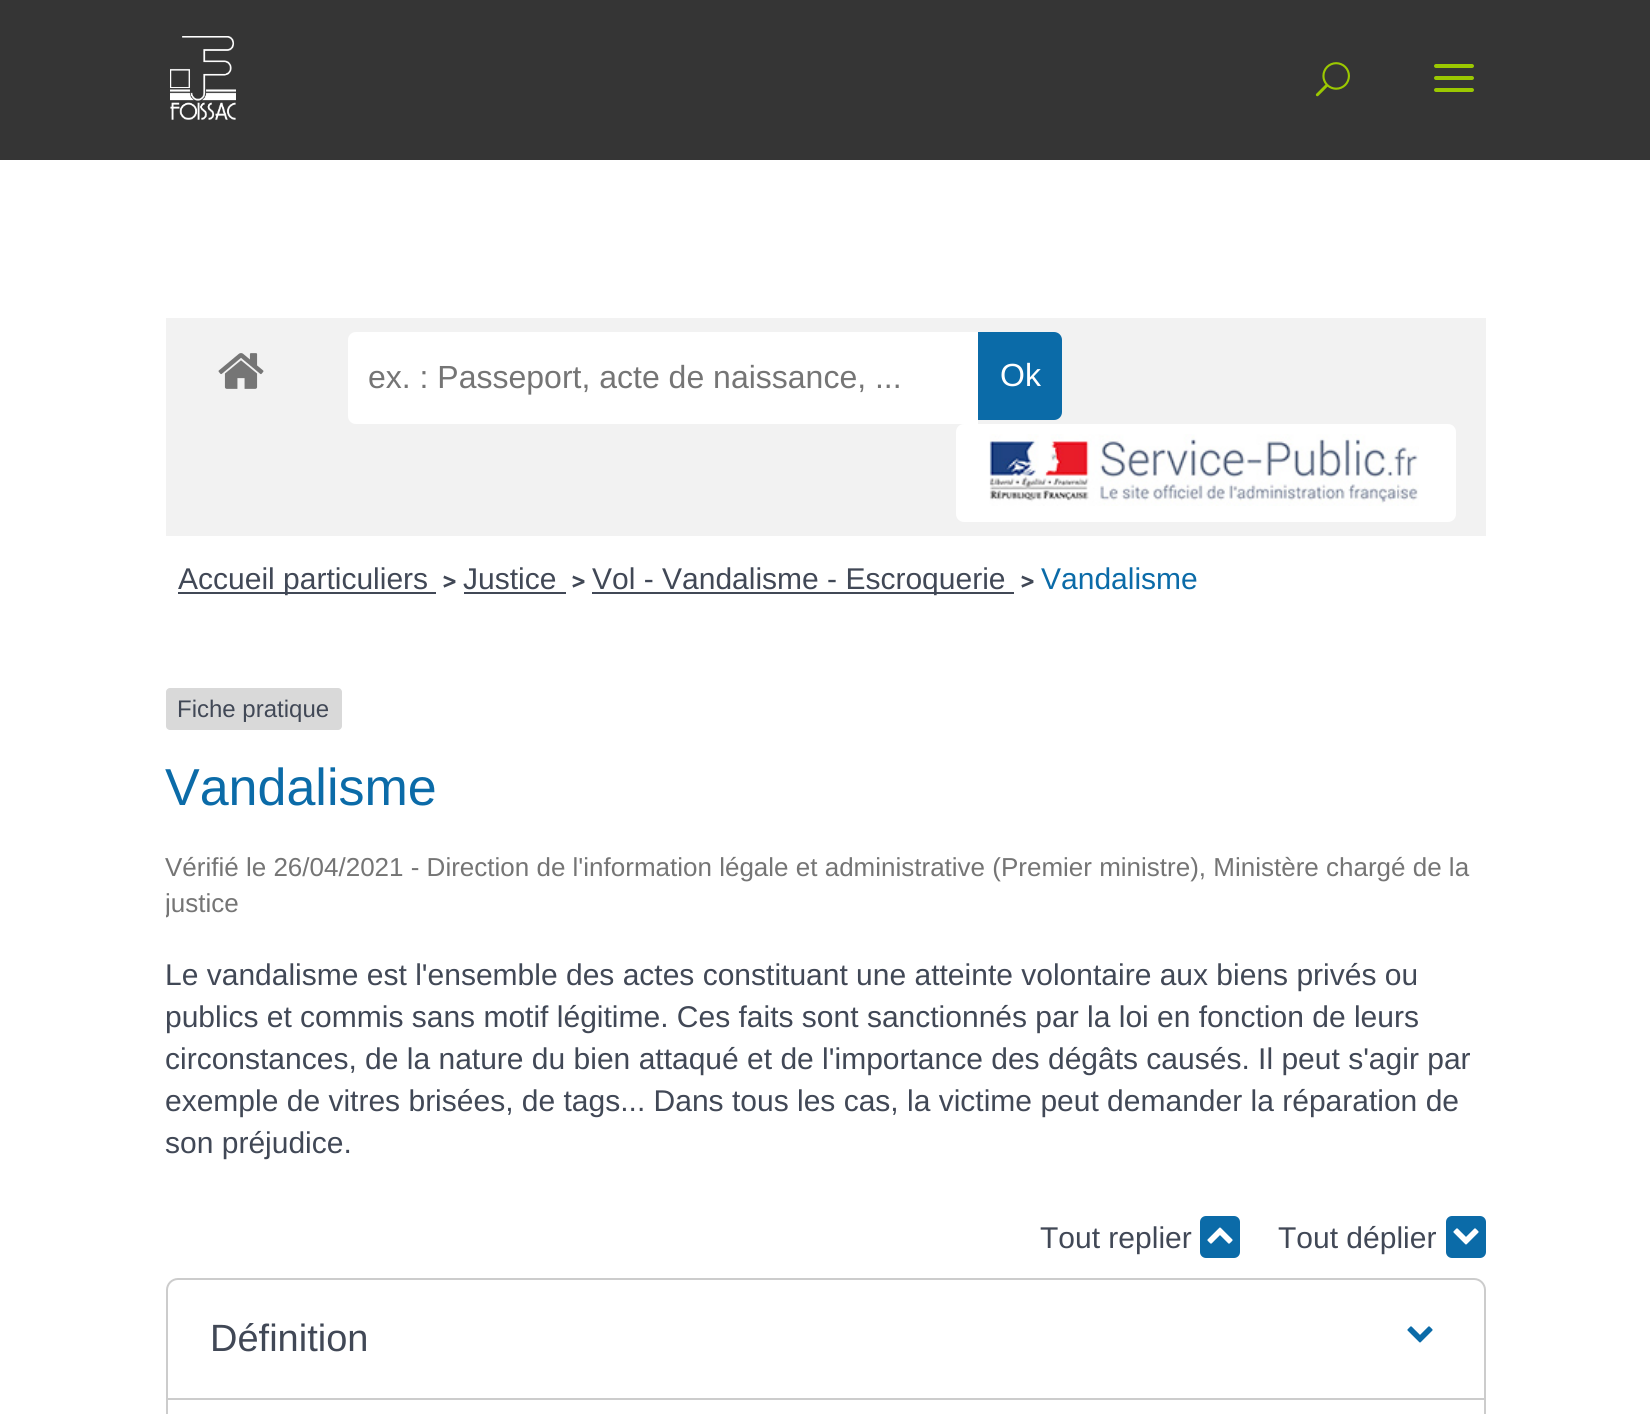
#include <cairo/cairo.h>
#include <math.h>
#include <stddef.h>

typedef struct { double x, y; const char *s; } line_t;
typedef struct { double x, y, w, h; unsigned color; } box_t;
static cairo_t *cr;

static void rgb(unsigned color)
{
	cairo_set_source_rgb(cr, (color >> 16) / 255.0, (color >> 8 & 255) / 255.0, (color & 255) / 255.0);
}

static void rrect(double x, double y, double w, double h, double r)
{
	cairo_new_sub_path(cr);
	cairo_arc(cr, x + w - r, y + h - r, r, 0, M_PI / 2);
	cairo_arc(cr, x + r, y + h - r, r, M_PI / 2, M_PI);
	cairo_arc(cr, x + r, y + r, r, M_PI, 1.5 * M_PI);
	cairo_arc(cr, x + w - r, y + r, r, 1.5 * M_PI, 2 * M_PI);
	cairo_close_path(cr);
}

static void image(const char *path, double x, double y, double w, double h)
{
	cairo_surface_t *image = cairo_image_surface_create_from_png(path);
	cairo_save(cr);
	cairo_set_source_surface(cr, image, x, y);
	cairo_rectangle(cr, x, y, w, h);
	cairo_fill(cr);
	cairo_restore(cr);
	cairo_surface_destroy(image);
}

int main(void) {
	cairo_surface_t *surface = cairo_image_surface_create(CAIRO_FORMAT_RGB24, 1650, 1414);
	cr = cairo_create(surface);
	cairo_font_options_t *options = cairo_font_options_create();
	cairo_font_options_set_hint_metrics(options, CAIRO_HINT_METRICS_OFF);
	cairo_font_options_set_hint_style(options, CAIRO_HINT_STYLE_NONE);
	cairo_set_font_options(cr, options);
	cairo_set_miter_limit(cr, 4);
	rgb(0xffffff);
	cairo_paint(cr);
	rgb(0x353535);
	cairo_rectangle(cr, 0, 0, 1650, 160);
	cairo_fill(cr);
	image("img/1.png", 170, 36, 66, 84);
	image("img/2.png", 1315, 62, 35, 35);
	image("img/3.png", 1434, 64, 40, 28);
	rgb(0xf2f2f2);
	cairo_rectangle(cr, 166, 318, 1320, 218);
	cairo_fill(cr);
	image("img/4.png", 218, 353, 46, 36);
	rgb(0xffffff);
	cairo_new_path(cr);
	cairo_move_to(cr, 356, 332);
	cairo_line_to(cr, 978, 332);
	cairo_line_to(cr, 978, 424);
	cairo_line_to(cr, 356, 424);
	cairo_curve_to(cr, 351.5, 424, 348, 420.5, 348, 416);
	cairo_line_to(cr, 348, 340);
	cairo_curve_to(cr, 348, 335.5, 351.5, 332, 356, 332);
	cairo_close_path(cr);
	cairo_fill(cr);
	rgb(0x0b6ba8);
	cairo_new_path(cr);
	cairo_move_to(cr, 978, 332);
	cairo_line_to(cr, 1054, 332);
	cairo_curve_to(cr, 1058.5, 332, 1062, 335.5, 1062, 340);
	cairo_line_to(cr, 1062, 412);
	cairo_curve_to(cr, 1062, 416.5, 1058.5, 420, 1054, 420);
	cairo_line_to(cr, 978, 420);
	cairo_close_path(cr);
	cairo_fill(cr);
	rgb(0xffffff);
	rrect(956, 424, 500, 98, 8);
	cairo_fill(cr);
	image("img/5.png", 989, 434, 430, 72);
	{
		static const box_t items[] = {
			{178, 592, 258, 2, 0x414856},
			{464, 592, 102, 2, 0x414856},
			{592, 592, 422, 2, 0x414856},
		};
		for (size_t i = 0; i < sizeof items / sizeof *items; i++) {
			rgb(items[i].color);
			cairo_rectangle(cr, items[i].x, items[i].y, items[i].w, items[i].h);
			cairo_fill(cr);
		}
	}
	rgb(0xd9d9d9);
	rrect(166, 688, 176, 42, 4);
	cairo_fill(cr);
	rgb(0x0b6ba8);
	rrect(1200, 1216, 40, 42, 6);
	cairo_fill(cr);
	image("img/6.png", 1207, 1227, 26, 17);
	rrect(1446, 1216, 40, 42, 6);
	cairo_fill(cr);
	image("img/7.png", 1453, 1228, 26, 17);
	rrect(167, 1279, 1318, 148, 11);
	rgb(0xcccccc);
	cairo_stroke(cr);
	image("img/8.png", 1407, 1326, 26, 17);
	cairo_rectangle(cr, 168, 1398, 1316, 2);
	cairo_fill(cr);
	cairo_select_font_face(cr, "Liberation Sans", CAIRO_FONT_SLANT_NORMAL, CAIRO_FONT_WEIGHT_NORMAL);
	cairo_set_font_size(cr, 32);
	rgb(0x757575);
	cairo_move_to(cr, 368, 388);
	cairo_show_text(cr, "ex. : Passeport, acte de naissance, ...");
	rgb(0xffffff);
	cairo_move_to(cr, 1000, 386);
	cairo_show_text(cr, "Ok");
	cairo_set_font_size(cr, 30);
	rgb(0x414856);
	cairo_move_to(cr, 178, 589);
	cairo_show_text(cr, "Accueil particuliers");
	cairo_select_font_face(cr, "Ubuntu Medium", CAIRO_FONT_SLANT_NORMAL, CAIRO_FONT_WEIGHT_NORMAL);
	cairo_set_font_size(cr, 26);
	cairo_move_to(cr, 442, 589);
	cairo_show_text(cr, ">");
	cairo_select_font_face(cr, "Liberation Sans", CAIRO_FONT_SLANT_NORMAL, CAIRO_FONT_WEIGHT_NORMAL);
	cairo_set_font_size(cr, 30);
	cairo_move_to(cr, 463, 589);
	cairo_show_text(cr, "Justice");
	cairo_select_font_face(cr, "Ubuntu Medium", CAIRO_FONT_SLANT_NORMAL, CAIRO_FONT_WEIGHT_NORMAL);
	cairo_set_font_size(cr, 26);
	cairo_move_to(cr, 571, 589);
	cairo_show_text(cr, ">");
	cairo_select_font_face(cr, "Liberation Sans", CAIRO_FONT_SLANT_NORMAL, CAIRO_FONT_WEIGHT_NORMAL);
	cairo_set_font_size(cr, 30);
	cairo_move_to(cr, 592, 589);
	cairo_show_text(cr, "Vol - Vandalisme - Escroquerie");
	cairo_select_font_face(cr, "Ubuntu Medium", CAIRO_FONT_SLANT_NORMAL, CAIRO_FONT_WEIGHT_NORMAL);
	cairo_set_font_size(cr, 26);
	cairo_move_to(cr, 1020, 589);
	cairo_show_text(cr, ">");
	cairo_select_font_face(cr, "Liberation Sans", CAIRO_FONT_SLANT_NORMAL, CAIRO_FONT_WEIGHT_NORMAL);
	cairo_set_font_size(cr, 30);
	rgb(0x0b6ba8);
	cairo_move_to(cr, 1041, 589);
	cairo_show_text(cr, "Vandalisme");
	cairo_set_font_size(cr, 24);
	rgb(0x414856);
	cairo_move_to(cr, 177, 717);
	cairo_show_text(cr, "Fiche pratique");
	cairo_set_font_size(cr, 52);
	rgb(0x0b6ba8);
	cairo_move_to(cr, 165, 805);
	cairo_show_text(cr, "Vandalisme");
	cairo_set_font_size(cr, 26);
	rgb(0x757575);
	cairo_move_to(cr, 165, 876);
	cairo_show_text(cr, "Vérifié le 26/04/2021 - Direction de l'information légale et administrative (Premier ministre), Ministère chargé de la");
	cairo_save(cr);
	cairo_rectangle(cr, 166, 318, 1320, 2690);
	cairo_clip(cr);
	cairo_move_to(cr, 165, 912);
	cairo_show_text(cr, "justice");
	cairo_restore(cr);
	cairo_set_font_size(cr, 30);
	rgb(0x414856);
	{
		static const line_t items[] = {
			{165, 985, "Le vandalisme est l'ensemble des actes constituant une atteinte volontaire aux biens privés ou"},
			{165, 1027, "publics et commis sans motif légitime. Ces faits sont sanctionnés par la loi en fonction de leurs"},
			{165, 1069, "circonstances, de la nature du bien attaqué et de l'importance des dégâts causés. Il peut s'agir par"},
			{165, 1111, "exemple de vitres brisées, de tags... Dans tous les cas, la victime peut demander la réparation de"},
			{165, 1153, "son préjudice."},
			{1040, 1248, "Tout replier"},
			{1278, 1248, "Tout déplier"},
		};
		for (size_t i = 0; i < sizeof items / sizeof *items; i++) {
			cairo_move_to(cr, items[i].x, items[i].y);
			cairo_show_text(cr, items[i].s);
		}
	}
	cairo_set_font_size(cr, 38);
	cairo_move_to(cr, 210, 1351);
	cairo_show_text(cr, "Définition");
	cairo_surface_write_to_png(surface, "page.png");
	cairo_font_options_destroy(options);
	cairo_destroy(cr);
	cairo_surface_destroy(surface);
	return 0;
}
